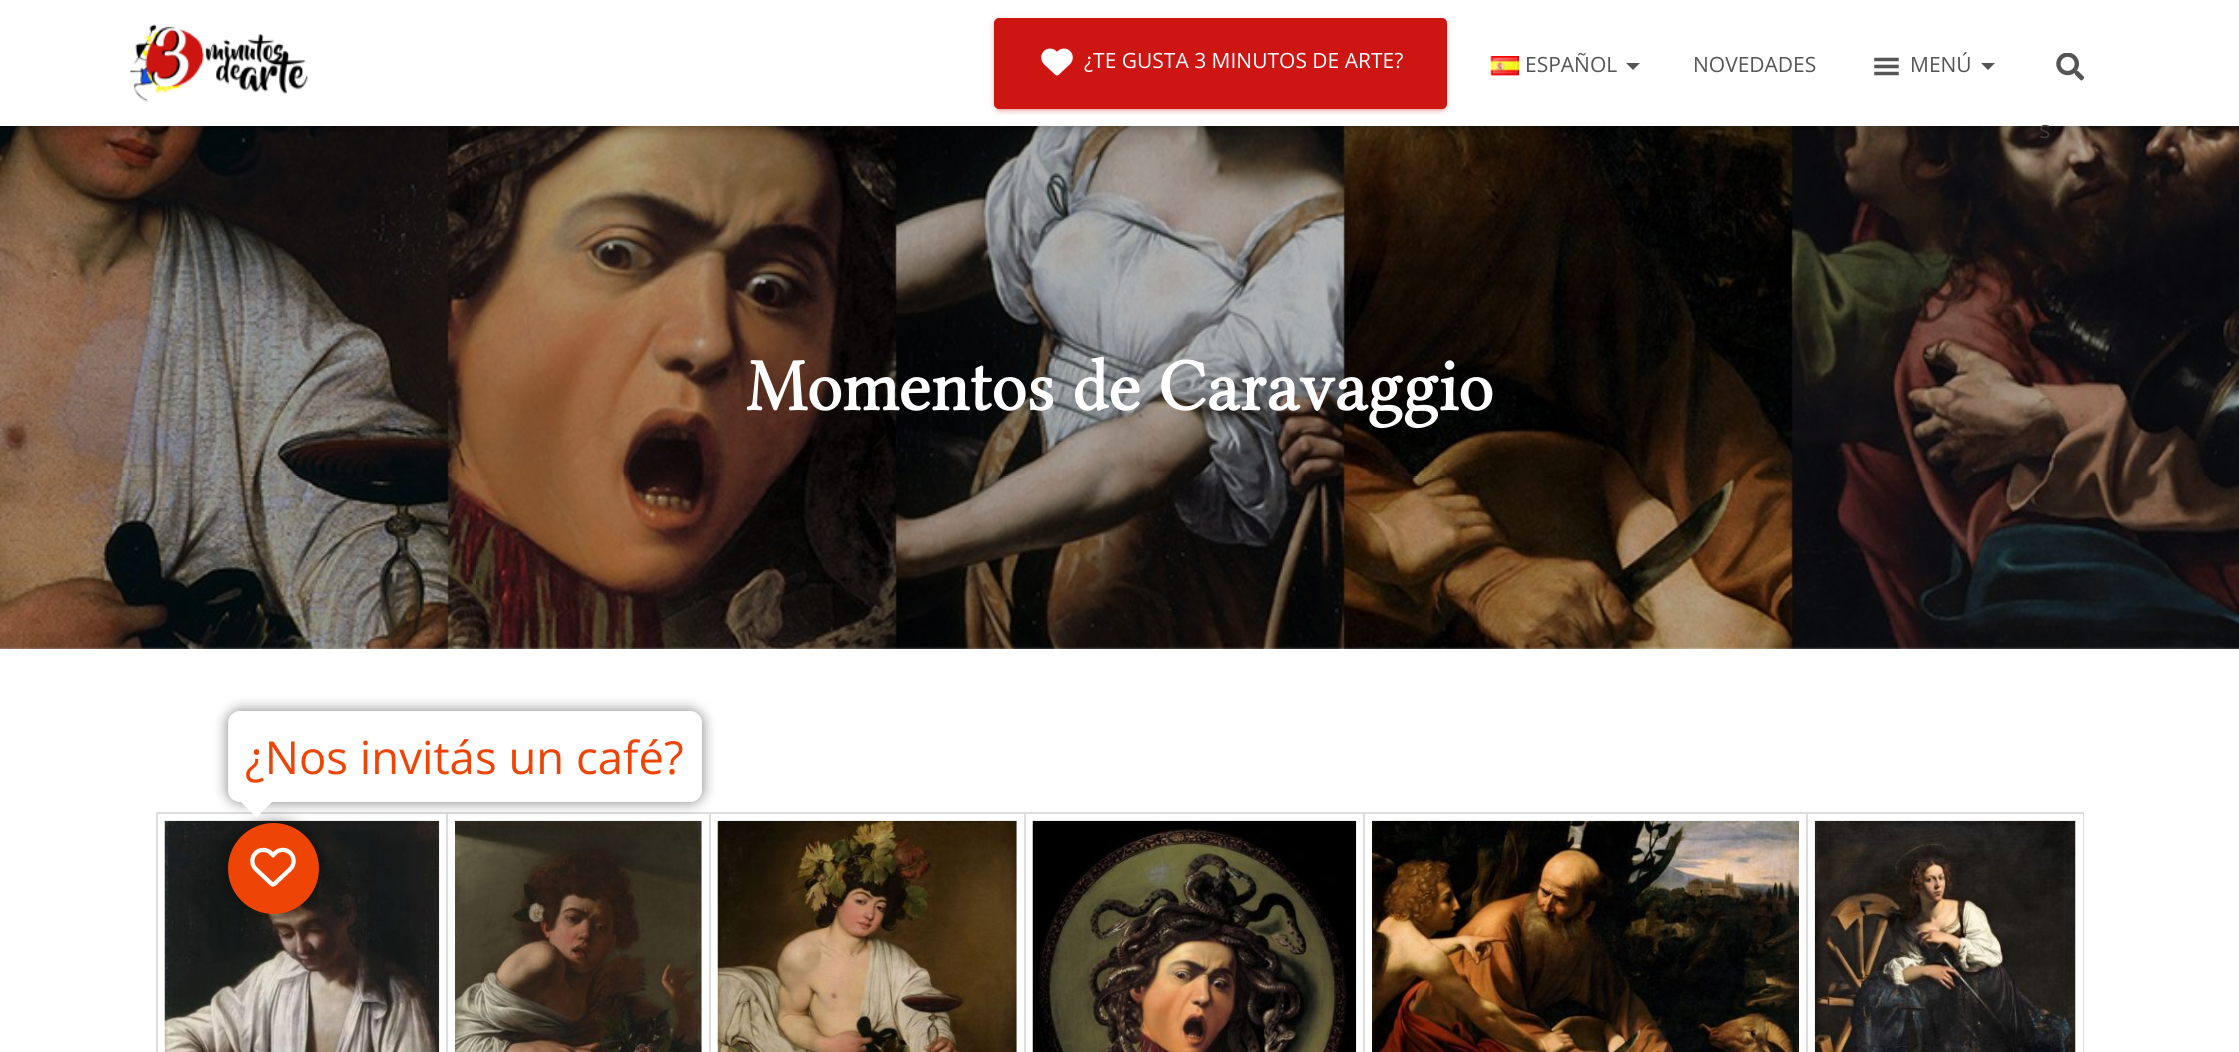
#include <cairo/cairo.h>
#include <math.h>
#include <stddef.h>

typedef struct { double x, y; const char *s; } line_t;
static cairo_t *cr;

static void rgb(unsigned color)
{
	cairo_set_source_rgb(cr, (color >> 16) / 255.0, (color >> 8 & 255) / 255.0, (color & 255) / 255.0);
}

static void rrect(double x, double y, double w, double h, double r)
{
	cairo_new_sub_path(cr);
	cairo_arc(cr, x + w - r, y + h - r, r, 0, M_PI / 2);
	cairo_arc(cr, x + r, y + h - r, r, M_PI / 2, M_PI);
	cairo_arc(cr, x + r, y + r, r, M_PI, 1.5 * M_PI);
	cairo_arc(cr, x + w - r, y + r, r, 1.5 * M_PI, 2 * M_PI);
	cairo_close_path(cr);
}

static void soft_shadow(double x, double y, double w, double h, double r, double blur, double alpha)
{
	cairo_push_group_with_content(cr, CAIRO_CONTENT_ALPHA);
	cairo_set_operator(cr, CAIRO_OPERATOR_SOURCE);
	for (int i = 15; i >= -15 && fmin(w, h) + blur * i / 3 > 0; i -= 2) {
		double e = blur * i / 6;
		cairo_set_source_rgba(cr, 0, 0, 0, alpha * erfc((i - 1) / 8.5) / 2);
		rrect(x - e, y - e, w + 2 * e, h + 2 * e, fmax(0, fmin(r + e + blur * .6, fmin(w, h) / 2 + e)));
		cairo_fill(cr);
	}
	cairo_pattern_t *soft = cairo_pop_group(cr);
	cairo_mask(cr, soft);
	cairo_pattern_destroy(soft);
}

static void image(const char *path, double x, double y, double w, double h)
{
	cairo_surface_t *image = cairo_image_surface_create_from_png(path);
	cairo_save(cr);
	cairo_set_source_surface(cr, image, x, y);
	cairo_rectangle(cr, x, y, w, h);
	cairo_fill(cr);
	cairo_restore(cr);
	cairo_surface_destroy(image);
}

int main(void) {
	cairo_surface_t *surface = cairo_image_surface_create(CAIRO_FORMAT_RGB24, 2239, 1052);
	cr = cairo_create(surface);
	cairo_font_options_t *options = cairo_font_options_create();
	cairo_font_options_set_hint_metrics(options, CAIRO_HINT_METRICS_OFF);
	cairo_font_options_set_hint_style(options, CAIRO_HINT_STYLE_NONE);
	cairo_set_font_options(cr, options);
	cairo_set_miter_limit(cr, 4);
	rgb(0xffffff);
	cairo_paint(cr);
	image("img/6.png", 0, 126, 2239, 523);
	rgb(0x000000);
	soft_shadow(4, 11, 2233, 119, 0, 4.5, 0.1);
	soft_shadow(0, 2, 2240, 126, 0, 9, 0.12);
	soft_shadow(11, 12, 2219, 105, 0, 9, 0.42);
	rgb(0xffffff);
	cairo_rectangle(cr, 0, 0, 2239, 126);
	cairo_fill(cr);
	image("img/1.png", 129, 24, 179, 78);
	rgb(0xcd1512);
	soft_shadow(994, 19, 453, 91, 5, 4.5, 0.12);
	soft_shadow(998, 26, 446, 84, 2, 1, 0.2);
	soft_shadow(994, 21, 453, 91, 5, 2, 0.14);
	rgb(0xcd1512);
	rrect(994, 18, 453, 91, 5);
	cairo_fill(cr);
	image("img/2.png", 1041, 48, 32, 28);
	image("img/3.png", 1490, 56, 29, 20);
	rgb(0x555555);
	cairo_new_path(cr);
	cairo_move_to(cr, 1626, 63);
	cairo_line_to(cr, 1640, 63);
	cairo_line_to(cr, 1633, 70);
	cairo_close_path(cr);
	cairo_fill(cr);
	image("img/4.png", 1874, 57, 25, 19);
	cairo_new_path(cr);
	cairo_move_to(cr, 1981, 63);
	cairo_line_to(cr, 1995, 63);
	cairo_line_to(cr, 1988, 70);
	cairo_close_path(cr);
	cairo_fill(cr);
	image("img/5.png", 2056, 53, 28, 28);
	cairo_rectangle(cr, 157, 813, 290, 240);
	rgb(0xdddddd);
	cairo_stroke(cr);
	image("img/7.png", 164, 820, 276, 232);
	cairo_rectangle(cr, 447, 813, 263, 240);
	cairo_stroke(cr);
	image("img/8.png", 455, 820, 247, 232);
	cairo_rectangle(cr, 710, 813, 315, 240);
	cairo_stroke(cr);
	image("img/9.png", 717, 820, 300, 232);
	cairo_rectangle(cr, 1025, 813, 339, 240);
	cairo_stroke(cr);
	image("img/10.png", 1032, 820, 325, 232);
	cairo_rectangle(cr, 1364, 813, 443, 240);
	cairo_stroke(cr);
	image("img/11.png", 1372, 820, 427, 232);
	cairo_rectangle(cr, 1807, 813, 276, 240);
	cairo_stroke(cr);
	rgb(0xffffff);
	cairo_rectangle(cr, 2082, 814, 1, 238);
	cairo_fill(cr);
	image("img/12.png", 1814, 820, 262, 232);
	rgb(0x000000);
	soft_shadow(228, 823, 91, 91, 45.5, 7, 0.5);
	rgb(0xee4507);
	cairo_arc(cr, 273.5, 868.5, 45.5, 0, 2 * M_PI);
	cairo_fill(cr);
	rgb(0x000000);
	soft_shadow(228, 711, 474, 91, 12, 7, 0.5);
	rgb(0xffffff);
	rrect(228, 711, 474, 91, 12);
	cairo_fill(cr);
	cairo_new_path(cr);
	cairo_move_to(cr, 256.5, 785.5);
	cairo_line_to(cr, 272.5, 801.5);
	cairo_line_to(cr, 256.5, 817.5);
	cairo_line_to(cr, 240.5, 801.5);
	cairo_close_path(cr);
	cairo_fill(cr);
	image("img/13.png", 250, 847, 46, 40);
	cairo_select_font_face(cr, "Open Sans", CAIRO_FONT_SLANT_NORMAL, CAIRO_FONT_WEIGHT_NORMAL);
	cairo_set_font_size(cr, 21);
	cairo_move_to(cr, 1084, 68);
	cairo_show_text(cr, "¿TE GUSTA 3 MINUTOS DE ARTE?");
	rgb(0x555555);
	{
		static const line_t items[] = {
			{1525, 72, "ESPAÑOL"},
			{1693, 72, "NOVEDADES"},
			{1910, 72, "MENÚ"},
		};
		for (size_t i = 0; i < sizeof items / sizeof *items; i++) {
			cairo_move_to(cr, items[i].x, items[i].y);
			cairo_show_text(cr, items[i].s);
		}
	}
	cairo_set_font_size(cr, 24);
	rgb(0x3f3939);
	cairo_move_to(cr, 2039, 138);
	cairo_show_text(cr, "s");
	cairo_select_font_face(cr, "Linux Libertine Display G", CAIRO_FONT_SLANT_NORMAL, CAIRO_FONT_WEIGHT_BOLD);
	cairo_set_font_size(cr, 73.5);
	rgb(0xffffff);
	cairo_move_to(cr, 746, 410);
	cairo_show_text(cr, "Momentos de Caravaggio");
	cairo_select_font_face(cr, "Open Sans", CAIRO_FONT_SLANT_NORMAL, CAIRO_FONT_WEIGHT_NORMAL);
	cairo_set_font_size(cr, 45.5);
	rgb(0xee4507);
	cairo_move_to(cr, 245, 774);
	cairo_show_text(cr, "¿Nos invitás un café?");
	cairo_surface_write_to_png(surface, "page.png");
	cairo_font_options_destroy(options);
	cairo_destroy(cr);
	cairo_surface_destroy(surface);
	return 0;
}
